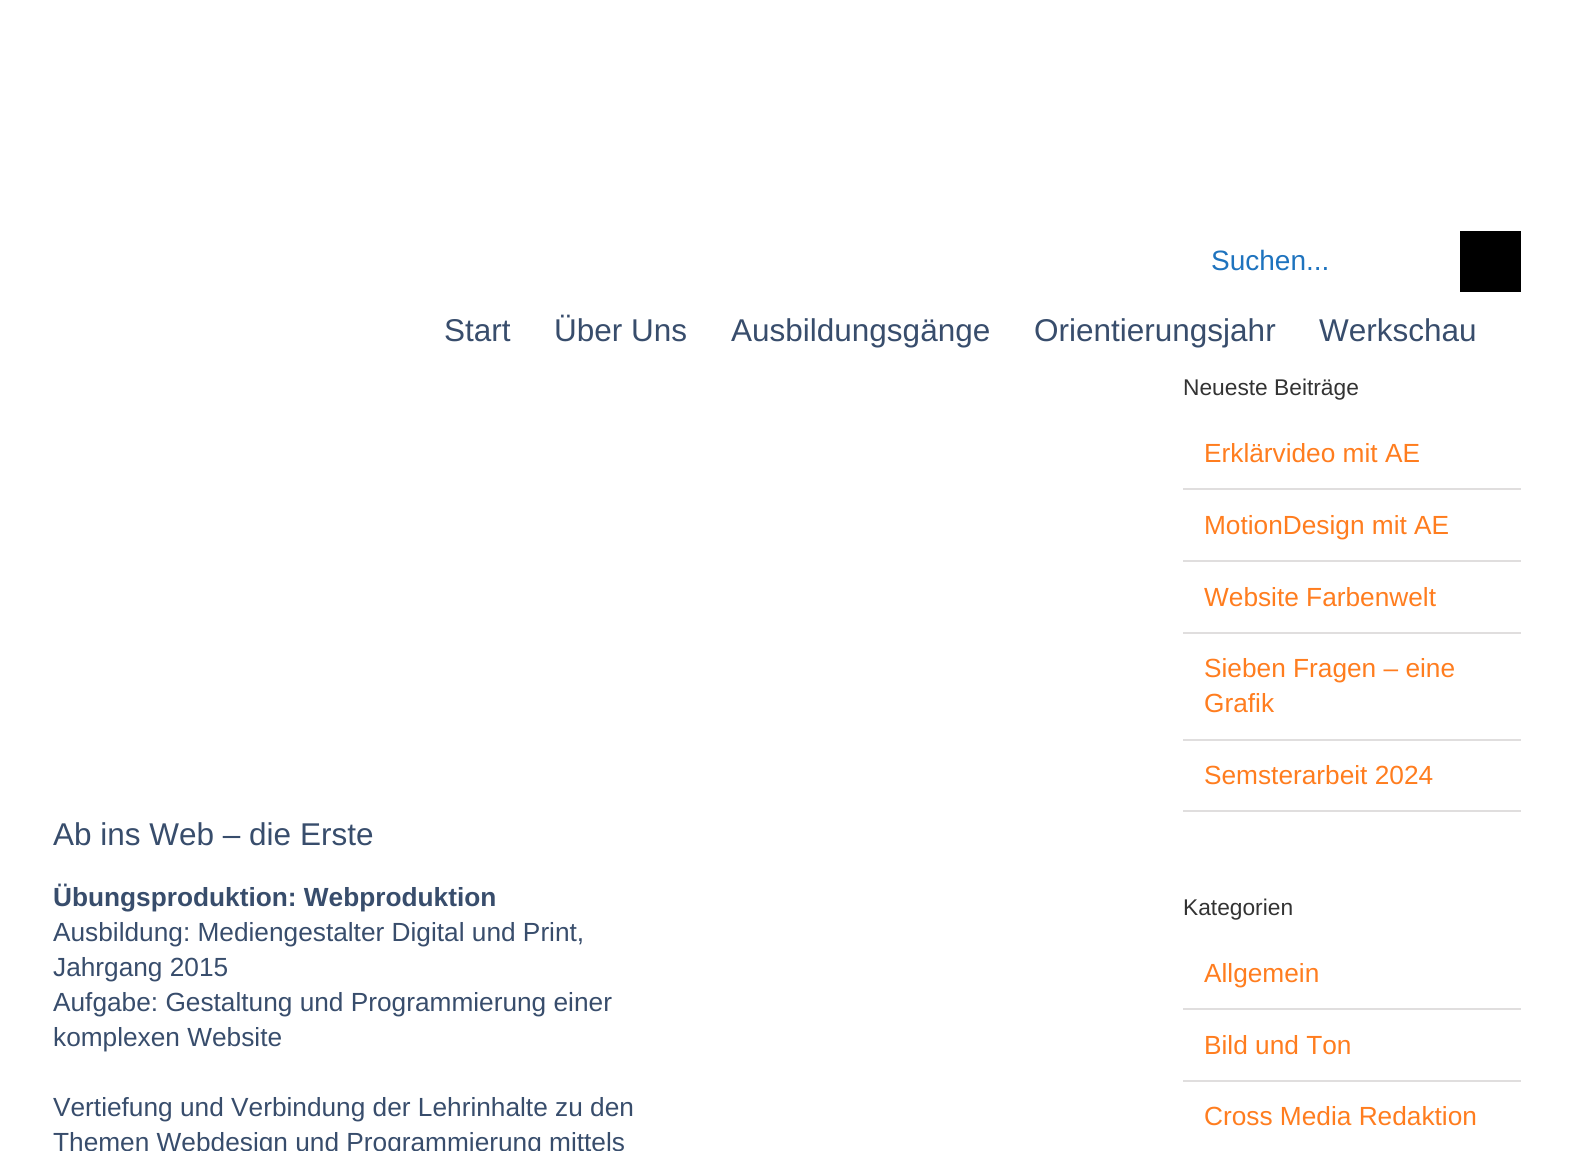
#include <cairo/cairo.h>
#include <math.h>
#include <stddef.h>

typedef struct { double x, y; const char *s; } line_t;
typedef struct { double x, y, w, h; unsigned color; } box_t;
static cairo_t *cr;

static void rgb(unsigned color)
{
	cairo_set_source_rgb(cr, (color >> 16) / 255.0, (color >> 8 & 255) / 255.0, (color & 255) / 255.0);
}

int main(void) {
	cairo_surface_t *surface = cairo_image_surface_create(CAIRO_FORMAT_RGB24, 1573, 1151);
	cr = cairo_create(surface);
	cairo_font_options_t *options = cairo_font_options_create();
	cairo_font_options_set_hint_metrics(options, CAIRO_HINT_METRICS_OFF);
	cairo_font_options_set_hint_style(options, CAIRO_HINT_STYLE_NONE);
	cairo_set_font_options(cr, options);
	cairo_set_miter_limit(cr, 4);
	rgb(0xffffff);
	cairo_paint(cr);
	{
		static const box_t items[] = {
			{1460, 231, 61, 61, 0x000000},
			{1183, 488, 338, 2, 0xe0dede},
			{1183, 560, 338, 2, 0xe0dede},
			{1183, 632, 338, 2, 0xe0dede},
			{1183, 739, 338, 2, 0xe0dede},
			{1183, 810, 338, 2, 0xe0dede},
			{1183, 1008, 338, 2, 0xe0dede},
			{1183, 1080, 338, 2, 0xe0dede},
		};
		for (size_t i = 0; i < sizeof items / sizeof *items; i++) {
			rgb(items[i].color);
			cairo_rectangle(cr, items[i].x, items[i].y, items[i].w, items[i].h);
			cairo_fill(cr);
		}
	}
	cairo_select_font_face(cr, "Liberation Sans", CAIRO_FONT_SLANT_NORMAL, CAIRO_FONT_WEIGHT_NORMAL);
	cairo_set_font_size(cr, 31.5);
	rgb(0x384d6c);
	cairo_move_to(cr, 53, 845);
	cairo_show_text(cr, "Ab ins Web – die Erste");
	cairo_select_font_face(cr, "Liberation Sans", CAIRO_FONT_SLANT_NORMAL, CAIRO_FONT_WEIGHT_BOLD);
	cairo_set_font_size(cr, 26.25);
	cairo_move_to(cr, 53, 906);
	cairo_show_text(cr, "Übungsproduktion: Webproduktion");
	cairo_select_font_face(cr, "Liberation Sans", CAIRO_FONT_SLANT_NORMAL, CAIRO_FONT_WEIGHT_NORMAL);
	{
		static const line_t items[] = {
			{53, 941, "Ausbildung: Mediengestalter Digital und Print,"},
			{53, 976, "Jahrgang 2015"},
			{53, 1011, "Aufgabe: Gestaltung und Programmierung einer"},
			{53, 1046, "komplexen Website"},
			{53, 1116, "Vertiefung und Verbindung der Lehrinhalte zu den"},
			{53, 1151, "Themen Webdesign und Programmierung mittels"},
		};
		for (size_t i = 0; i < sizeof items / sizeof *items; i++) {
			cairo_move_to(cr, items[i].x, items[i].y);
			cairo_show_text(cr, items[i].s);
		}
	}
	cairo_set_font_size(cr, 28);
	rgb(0x1e73be);
	cairo_move_to(cr, 1211, 270);
	cairo_show_text(cr, "Suchen...");
	cairo_set_font_size(cr, 22.75);
	rgb(0x333333);
	cairo_move_to(cr, 1183, 395);
	cairo_show_text(cr, "Neueste Beiträge");
	cairo_set_font_size(cr, 26.25);
	rgb(0xff7d1f);
	{
		static const line_t items[] = {
			{1204, 462, "Erklärvideo mit AE"},
			{1204, 534, "MotionDesign mit AE"},
			{1204, 606, "Website Farbenwelt"},
			{1204, 677, "Sieben Fragen – eine"},
			{1204, 712, "Grafik"},
			{1204, 784, "Semsterarbeit 2024"},
		};
		for (size_t i = 0; i < sizeof items / sizeof *items; i++) {
			cairo_move_to(cr, items[i].x, items[i].y);
			cairo_show_text(cr, items[i].s);
		}
	}
	cairo_set_font_size(cr, 22.75);
	rgb(0x333333);
	cairo_move_to(cr, 1183, 915);
	cairo_show_text(cr, "Kategorien");
	cairo_set_font_size(cr, 26.25);
	rgb(0xff7d1f);
	{
		static const line_t items[] = {
			{1204, 982, "Allgemein"},
			{1204, 1054, "Bild und Ton"},
			{1204, 1125, "Cross Media Redaktion"},
		};
		for (size_t i = 0; i < sizeof items / sizeof *items; i++) {
			cairo_move_to(cr, items[i].x, items[i].y);
			cairo_show_text(cr, items[i].s);
		}
	}
	cairo_set_font_size(cr, 31.5);
	rgb(0x384d6c);
	{
		static const line_t items[] = {
			{444, 341, "Start"},
			{554, 341, "Über Uns"},
			{731, 341, "Ausbildungsgänge"},
			{1034, 341, "Orientierungsjahr"},
			{1319, 341, "Werkschau"},
		};
		for (size_t i = 0; i < sizeof items / sizeof *items; i++) {
			cairo_move_to(cr, items[i].x, items[i].y);
			cairo_show_text(cr, items[i].s);
		}
	}
	cairo_surface_write_to_png(surface, "page.png");
	cairo_font_options_destroy(options);
	cairo_destroy(cr);
	cairo_surface_destroy(surface);
	return 0;
}
